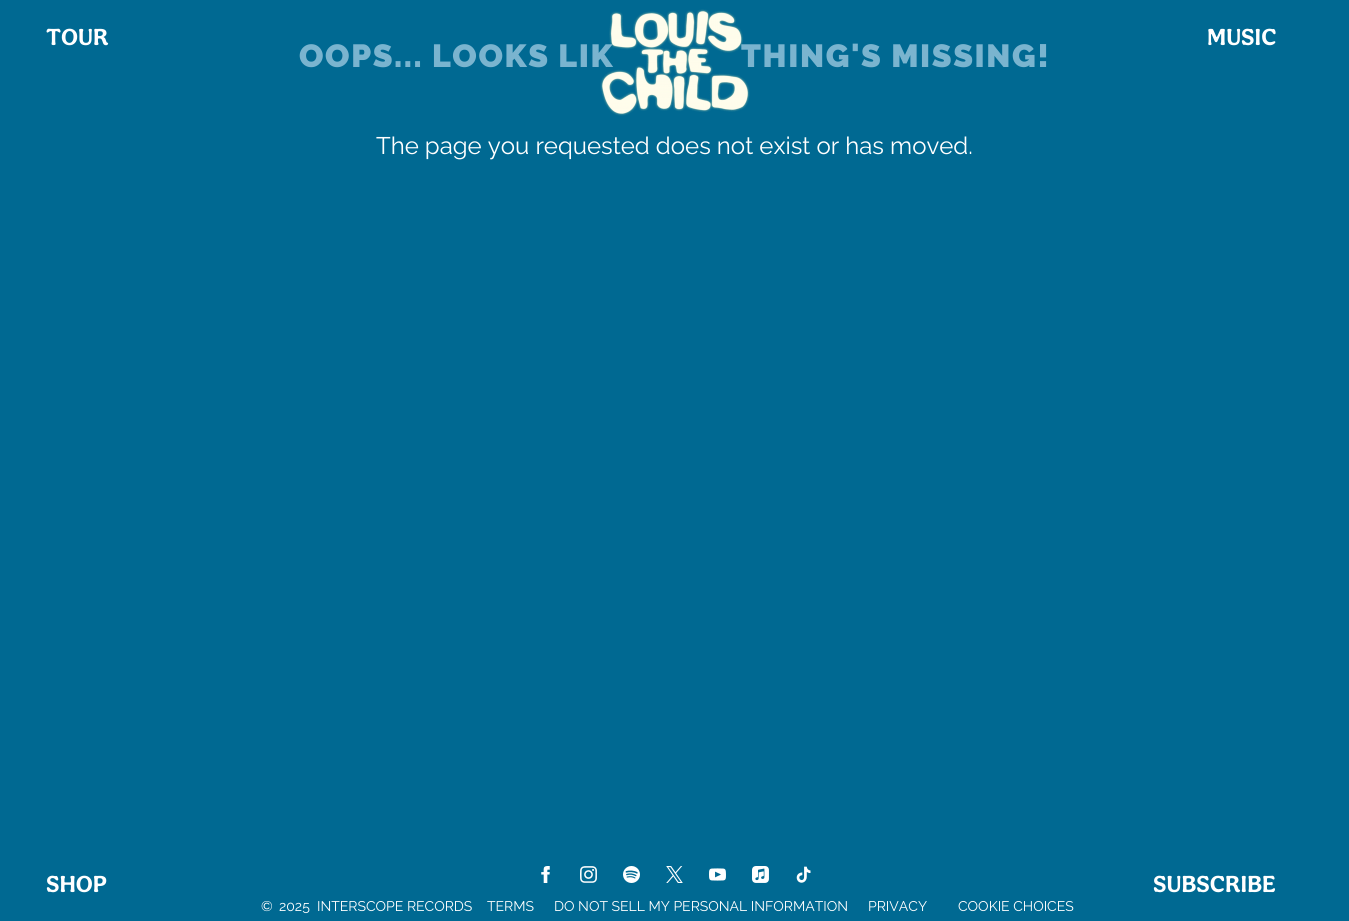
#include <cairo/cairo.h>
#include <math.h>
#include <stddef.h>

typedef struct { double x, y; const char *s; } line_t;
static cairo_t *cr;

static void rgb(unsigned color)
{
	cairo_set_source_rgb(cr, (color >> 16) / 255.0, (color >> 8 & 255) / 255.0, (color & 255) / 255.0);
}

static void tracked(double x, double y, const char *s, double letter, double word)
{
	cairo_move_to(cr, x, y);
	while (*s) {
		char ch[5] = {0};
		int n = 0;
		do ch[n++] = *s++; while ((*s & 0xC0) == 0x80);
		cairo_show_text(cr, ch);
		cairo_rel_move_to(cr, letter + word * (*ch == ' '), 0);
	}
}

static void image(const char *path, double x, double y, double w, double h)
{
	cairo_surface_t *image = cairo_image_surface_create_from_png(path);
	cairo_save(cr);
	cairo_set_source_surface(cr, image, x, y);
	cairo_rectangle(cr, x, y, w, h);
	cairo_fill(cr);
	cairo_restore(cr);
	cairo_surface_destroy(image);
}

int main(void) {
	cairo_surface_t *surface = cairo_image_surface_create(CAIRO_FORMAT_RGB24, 1349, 921);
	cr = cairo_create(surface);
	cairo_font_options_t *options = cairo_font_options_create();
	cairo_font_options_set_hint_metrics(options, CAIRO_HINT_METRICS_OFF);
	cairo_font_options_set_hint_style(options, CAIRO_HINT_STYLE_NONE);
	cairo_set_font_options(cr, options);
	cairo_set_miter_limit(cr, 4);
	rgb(0x006992);
	cairo_paint(cr);
	image("img/2.png", 541, 866, 9, 17);
	image("img/3.png", 580, 866, 17, 17);
	image("img/4.png", 623, 866, 17, 17);
	image("img/5.png", 666, 866, 17, 17);
	image("img/6.png", 709, 868, 17, 13);
	image("img/7.png", 752, 866, 17, 17);
	image("img/8.png", 796, 866, 15, 17);
	cairo_select_font_face(cr, "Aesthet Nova", CAIRO_FONT_SLANT_NORMAL, CAIRO_FONT_WEIGHT_BOLD);
	cairo_set_font_size(cr, 24);
	rgb(0xffffff);
	{
		static const line_t items[] = {
			{46, 45, "TOUR"},
			{1207, 45, "MUSIC"},
			{46, 892, "SHOP"},
			{1153, 892, "SUBSCRIBE"},
		};
		for (size_t i = 0; i < sizeof items / sizeof *items; i++) {
			cairo_move_to(cr, items[i].x, items[i].y);
			cairo_show_text(cr, items[i].s);
		}
	}
	cairo_select_font_face(cr, "Raleway Thin", CAIRO_FONT_SLANT_NORMAL, CAIRO_FONT_WEIGHT_NORMAL);
	cairo_set_font_size(cr, 32);
	rgb(0x7ab4cf);
	tracked(299, 67, "OOPS... LOOKS LIK", 1.6, 0);
	tracked(741, 67, "THING'S MISSING!", 1.6, 0);
	image("img/1.png", 600, 9, 150, 107);
	cairo_select_font_face(cr, "Raleway", CAIRO_FONT_SLANT_NORMAL, CAIRO_FONT_WEIGHT_NORMAL);
	cairo_set_font_size(cr, 24);
	rgb(0xffffff);
	cairo_move_to(cr, 376, 154);
	cairo_show_text(cr, "The page you requested does not exist or has moved.");
	cairo_set_font_size(cr, 14);
	{
		static const line_t items[] = {
			{261, 911, "©"},
			{279, 911, "2025"},
			{317, 911, "INTERSCOPE RECORDS"},
			{487, 911, "TERMS"},
			{554, 911, "DO NOT SELL MY PERSONAL INFORMATION"},
			{868, 911, "PRIVACY"},
			{958, 911, "COOKIE CHOICES"},
		};
		for (size_t i = 0; i < sizeof items / sizeof *items; i++) {
			cairo_move_to(cr, items[i].x, items[i].y);
			cairo_show_text(cr, items[i].s);
		}
	}
	cairo_surface_write_to_png(surface, "page.png");
	cairo_font_options_destroy(options);
	cairo_destroy(cr);
	cairo_surface_destroy(surface);
	return 0;
}
